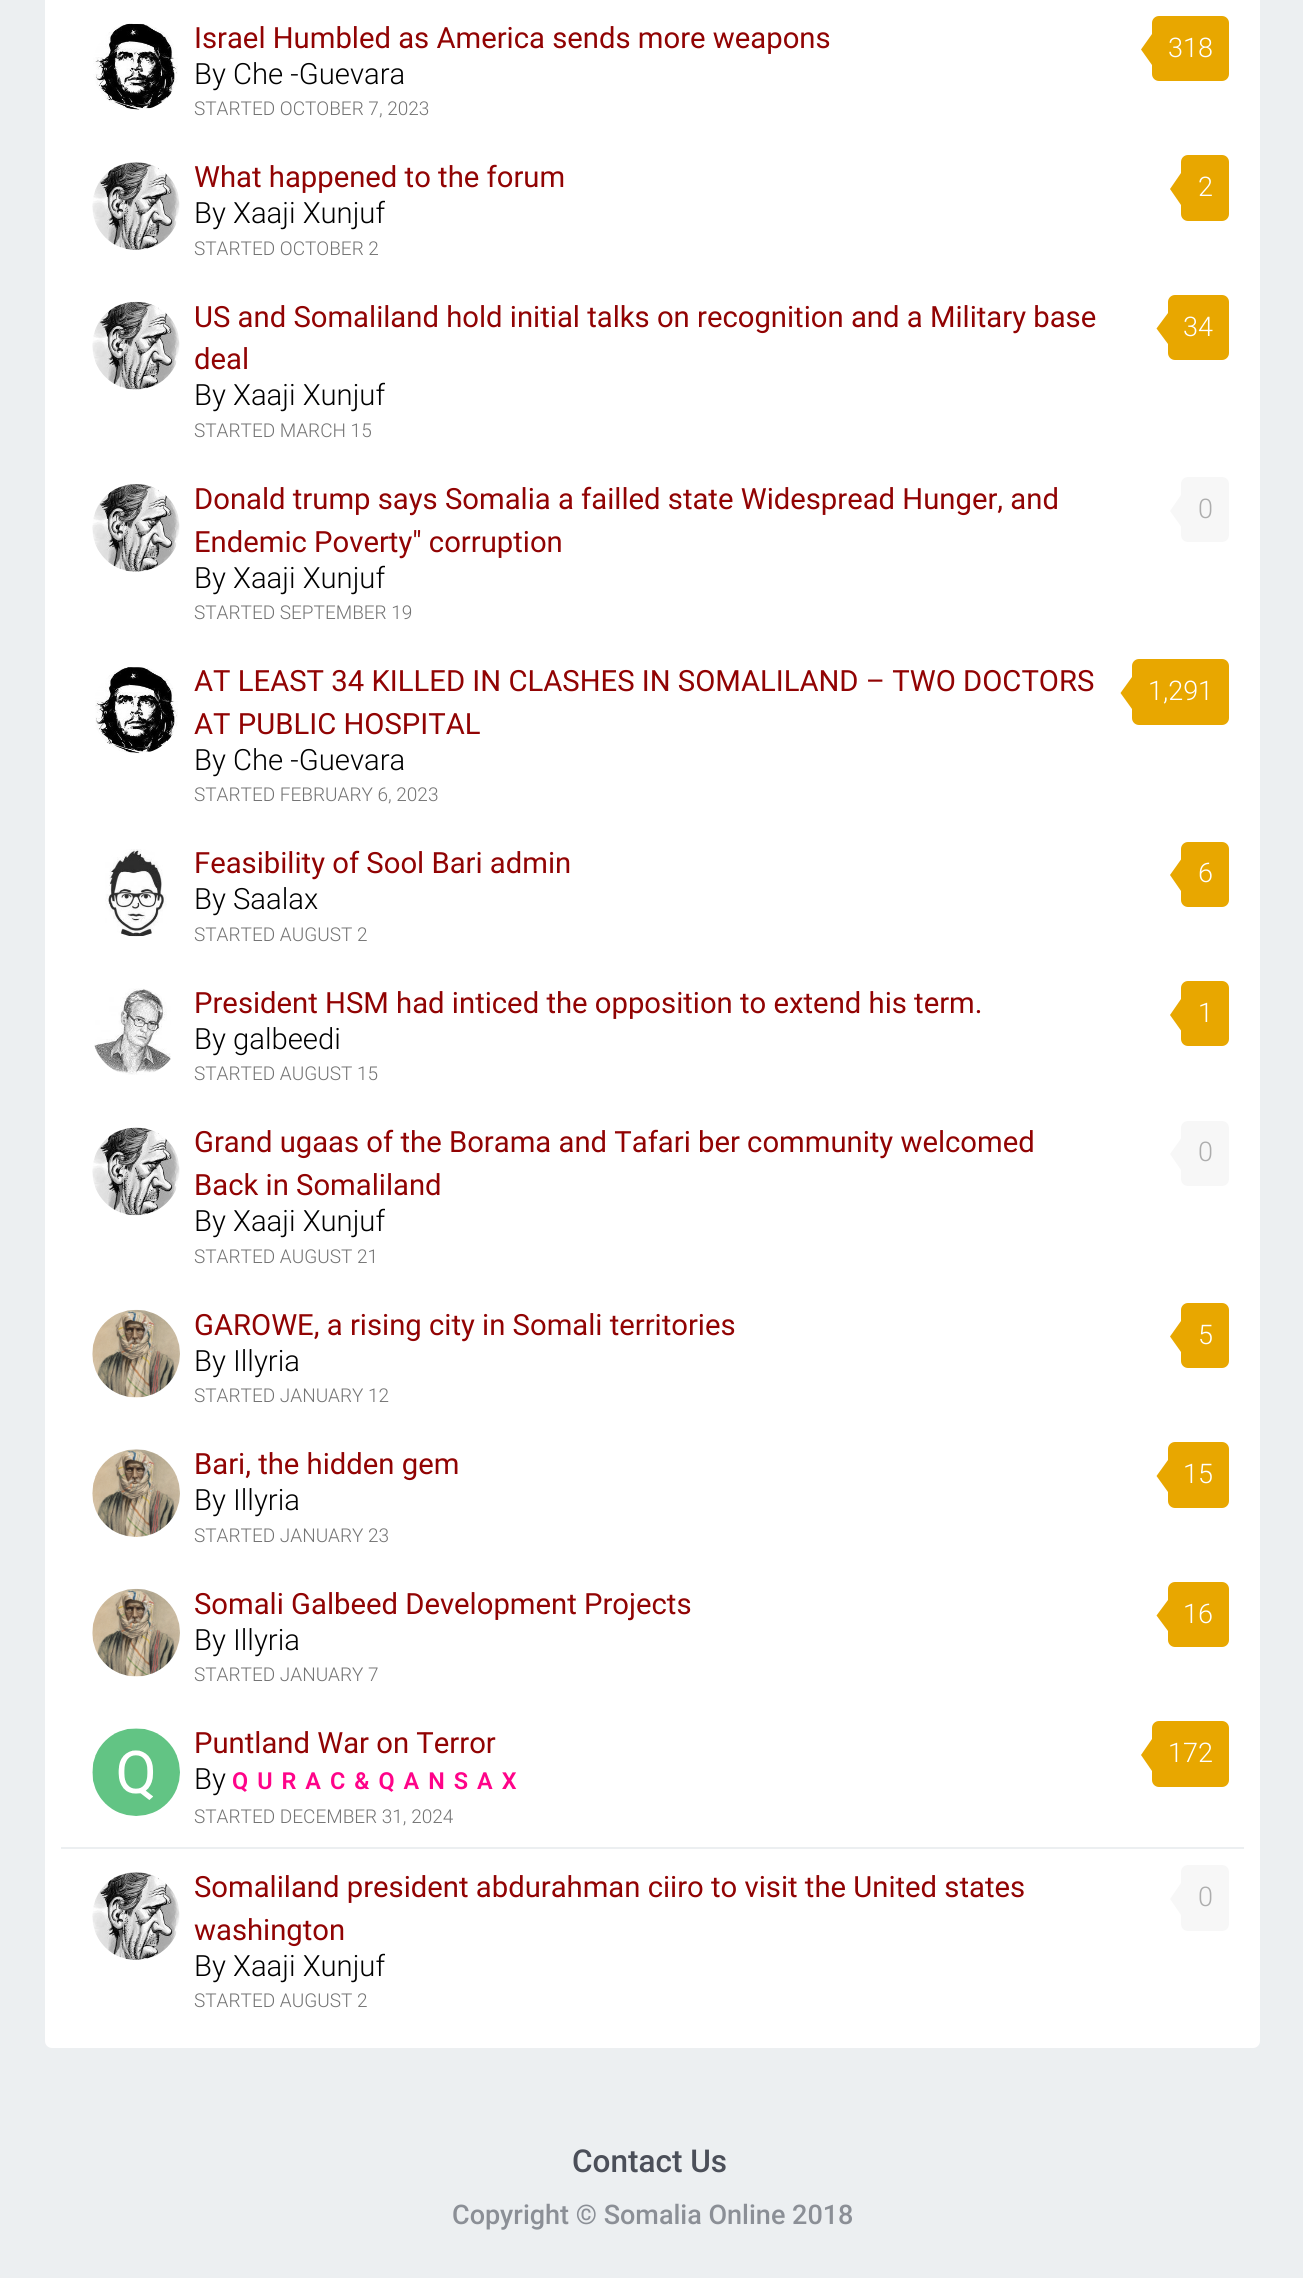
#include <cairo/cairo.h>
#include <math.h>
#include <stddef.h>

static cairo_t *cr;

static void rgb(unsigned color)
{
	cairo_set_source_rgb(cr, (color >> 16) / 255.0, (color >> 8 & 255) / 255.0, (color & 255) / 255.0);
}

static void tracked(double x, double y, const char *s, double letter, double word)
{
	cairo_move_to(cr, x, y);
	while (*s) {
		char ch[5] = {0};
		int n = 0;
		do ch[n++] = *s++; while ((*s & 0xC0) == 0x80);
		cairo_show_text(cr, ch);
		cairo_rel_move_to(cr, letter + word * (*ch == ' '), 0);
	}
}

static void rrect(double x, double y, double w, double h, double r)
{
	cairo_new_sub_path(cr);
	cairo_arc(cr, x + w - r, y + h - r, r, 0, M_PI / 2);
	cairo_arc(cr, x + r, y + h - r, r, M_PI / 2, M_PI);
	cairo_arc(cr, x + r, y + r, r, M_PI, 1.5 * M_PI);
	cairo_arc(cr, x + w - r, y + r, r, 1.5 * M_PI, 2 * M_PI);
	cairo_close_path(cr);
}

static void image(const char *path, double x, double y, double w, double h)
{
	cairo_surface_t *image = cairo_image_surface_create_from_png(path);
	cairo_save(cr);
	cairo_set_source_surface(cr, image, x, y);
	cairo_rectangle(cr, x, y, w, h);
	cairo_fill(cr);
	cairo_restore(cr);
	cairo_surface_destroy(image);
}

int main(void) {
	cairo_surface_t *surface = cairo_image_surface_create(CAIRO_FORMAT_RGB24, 1303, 2278);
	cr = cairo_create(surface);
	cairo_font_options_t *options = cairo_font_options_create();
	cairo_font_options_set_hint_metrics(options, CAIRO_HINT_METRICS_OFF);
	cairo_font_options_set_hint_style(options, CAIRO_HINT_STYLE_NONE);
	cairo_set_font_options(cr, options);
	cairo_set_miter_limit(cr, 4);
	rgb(0xeceff1);
	cairo_paint(cr);
	rgb(0xffffff);
	rrect(45, -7, 1215, 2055, 7);
	cairo_fill(cr);
	image("img/1.png", 93, 23, 85, 87);
	rgb(0xe8a700);
	rrect(1152, 16, 77, 65, 7);
	cairo_fill(cr);
	cairo_new_path(cr);
	cairo_move_to(cr, 1152, 34);
	cairo_line_to(cr, 1152, 65);
	cairo_line_to(cr, 1141, 49.5);
	cairo_close_path(cr);
	cairo_fill(cr);
	image("img/2.png", 92, 162, 88, 88);
	rrect(1181, 155, 48, 66, 7);
	cairo_fill(cr);
	cairo_new_path(cr);
	cairo_move_to(cr, 1181, 173);
	cairo_line_to(cr, 1181, 205);
	cairo_line_to(cr, 1170, 189);
	cairo_close_path(cr);
	cairo_fill(cr);
	image("img/3.png", 92, 301, 88, 89);
	rrect(1168, 295, 61, 65, 7);
	cairo_fill(cr);
	cairo_new_path(cr);
	cairo_move_to(cr, 1168, 313);
	cairo_line_to(cr, 1168, 344);
	cairo_line_to(cr, 1156.5, 328.5);
	cairo_close_path(cr);
	cairo_fill(cr);
	image("img/4.png", 92, 484, 88, 88);
	rgb(0xf7f7f7);
	rrect(1181, 477, 48, 65, 7);
	cairo_fill(cr);
	cairo_new_path(cr);
	cairo_move_to(cr, 1181, 495);
	cairo_line_to(cr, 1181, 526.5);
	cairo_line_to(cr, 1170, 511);
	cairo_close_path(cr);
	cairo_fill(cr);
	image("img/5.png", 95, 667, 83, 87);
	rgb(0xe8a700);
	rrect(1132, 659, 97, 66, 7);
	cairo_fill(cr);
	cairo_new_path(cr);
	cairo_move_to(cr, 1132, 677);
	cairo_line_to(cr, 1132, 709);
	cairo_line_to(cr, 1120.5, 693);
	cairo_close_path(cr);
	cairo_fill(cr);
	image("img/6.png", 105, 849, 62, 88);
	rrect(1181, 842, 48, 65, 7);
	cairo_fill(cr);
	cairo_new_path(cr);
	cairo_move_to(cr, 1181, 859.5);
	cairo_line_to(cr, 1181, 891);
	cairo_line_to(cr, 1170, 875);
	cairo_close_path(cr);
	cairo_fill(cr);
	image("img/7.png", 94, 988, 77, 87);
	rrect(1181, 981, 48, 65, 7);
	cairo_fill(cr);
	cairo_new_path(cr);
	cairo_move_to(cr, 1181, 999);
	cairo_line_to(cr, 1181, 1030.5);
	cairo_line_to(cr, 1170, 1015);
	cairo_close_path(cr);
	cairo_fill(cr);
	image("img/8.png", 92, 1127, 88, 89);
	rgb(0xf7f7f7);
	rrect(1181, 1121, 48, 65, 7);
	cairo_fill(cr);
	cairo_new_path(cr);
	cairo_move_to(cr, 1181, 1138.5);
	cairo_line_to(cr, 1181, 1170);
	cairo_line_to(cr, 1170, 1154);
	cairo_close_path(cr);
	cairo_fill(cr);
	image("img/9.png", 92, 1309, 88, 89);
	rgb(0xe8a700);
	rrect(1181, 1303, 48, 65, 7);
	cairo_fill(cr);
	cairo_new_path(cr);
	cairo_move_to(cr, 1181, 1321);
	cairo_line_to(cr, 1181, 1352);
	cairo_line_to(cr, 1170, 1336.5);
	cairo_close_path(cr);
	cairo_fill(cr);
	image("img/10.png", 92, 1449, 88, 88);
	rrect(1168, 1442, 61, 66, 7);
	cairo_fill(cr);
	cairo_new_path(cr);
	cairo_move_to(cr, 1168, 1460);
	cairo_line_to(cr, 1168, 1492);
	cairo_line_to(cr, 1156.5, 1476);
	cairo_close_path(cr);
	cairo_fill(cr);
	image("img/9.png", 92, 1588, 88, 89);
	rrect(1168, 1582, 61, 65, 7);
	cairo_fill(cr);
	cairo_new_path(cr);
	cairo_move_to(cr, 1168, 1600);
	cairo_line_to(cr, 1168, 1631);
	cairo_line_to(cr, 1156.5, 1615.5);
	cairo_close_path(cr);
	cairo_fill(cr);
	image("img/11.png", 92, 1728, 88, 88);
	rrect(1152, 1721, 77, 66, 7);
	cairo_fill(cr);
	cairo_new_path(cr);
	cairo_move_to(cr, 1152, 1739);
	cairo_line_to(cr, 1152, 1771);
	cairo_line_to(cr, 1141, 1755);
	cairo_close_path(cr);
	cairo_fill(cr);
	rgb(0xeceff1);
	cairo_rectangle(cr, 61, 1847, 1183, 2);
	cairo_fill(cr);
	image("img/2.png", 92, 1872, 88, 88);
	rgb(0xf7f7f7);
	rrect(1181, 1865, 48, 66, 7);
	cairo_fill(cr);
	cairo_new_path(cr);
	cairo_move_to(cr, 1181, 1883);
	cairo_line_to(cr, 1181, 1915);
	cairo_line_to(cr, 1170, 1899);
	cairo_close_path(cr);
	cairo_fill(cr);
	cairo_select_font_face(cr, "Roboto", CAIRO_FONT_SLANT_NORMAL, CAIRO_FONT_WEIGHT_NORMAL);
	cairo_set_font_size(cr, 29.25);
	rgb(0x910303);
	cairo_move_to(cr, 194, 48);
	cairo_show_text(cr, "Israel Humbled as America sends more weapons");
	cairo_select_font_face(cr, "Roboto Light", CAIRO_FONT_SLANT_NORMAL, CAIRO_FONT_WEIGHT_NORMAL);
	cairo_set_font_size(cr, 27);
	rgb(0xffffff);
	cairo_move_to(cr, 1168, 57);
	cairo_show_text(cr, "318");
	cairo_set_font_size(cr, 29.25);
	rgb(0x000000);
	cairo_move_to(cr, 194, 84);
	cairo_show_text(cr, "By Che -Guevara");
	cairo_set_font_size(cr, 19);
	rgb(0x737373);
	cairo_move_to(cr, 194, 115);
	cairo_show_text(cr, "STARTED OCTOBER 7, 2023");
	cairo_select_font_face(cr, "Roboto", CAIRO_FONT_SLANT_NORMAL, CAIRO_FONT_WEIGHT_NORMAL);
	cairo_set_font_size(cr, 29.25);
	rgb(0x910303);
	cairo_move_to(cr, 194, 187);
	cairo_show_text(cr, "What happened to the forum");
	cairo_select_font_face(cr, "Roboto Light", CAIRO_FONT_SLANT_NORMAL, CAIRO_FONT_WEIGHT_NORMAL);
	cairo_set_font_size(cr, 27);
	rgb(0xffffff);
	cairo_move_to(cr, 1198, 196);
	cairo_show_text(cr, "2");
	cairo_set_font_size(cr, 29.25);
	rgb(0x000000);
	cairo_move_to(cr, 194, 223);
	cairo_show_text(cr, "By Xaaji Xunjuf");
	cairo_set_font_size(cr, 19);
	rgb(0x737373);
	cairo_move_to(cr, 194, 255);
	cairo_show_text(cr, "STARTED OCTOBER 2");
	cairo_select_font_face(cr, "Roboto", CAIRO_FONT_SLANT_NORMAL, CAIRO_FONT_WEIGHT_NORMAL);
	cairo_set_font_size(cr, 29.25);
	rgb(0x910303);
	cairo_move_to(cr, 194, 327);
	cairo_show_text(cr, "US and Somaliland hold initial talks on recognition and a Military base");
	cairo_select_font_face(cr, "Roboto Light", CAIRO_FONT_SLANT_NORMAL, CAIRO_FONT_WEIGHT_NORMAL);
	cairo_set_font_size(cr, 27);
	rgb(0xffffff);
	cairo_move_to(cr, 1183, 336);
	cairo_show_text(cr, "34");
	cairo_select_font_face(cr, "Roboto", CAIRO_FONT_SLANT_NORMAL, CAIRO_FONT_WEIGHT_NORMAL);
	cairo_set_font_size(cr, 29.25);
	rgb(0x910303);
	cairo_move_to(cr, 194, 369);
	cairo_show_text(cr, "deal");
	cairo_select_font_face(cr, "Roboto Light", CAIRO_FONT_SLANT_NORMAL, CAIRO_FONT_WEIGHT_NORMAL);
	rgb(0x000000);
	cairo_move_to(cr, 194, 405);
	cairo_show_text(cr, "By Xaaji Xunjuf");
	cairo_set_font_size(cr, 19);
	rgb(0x737373);
	cairo_move_to(cr, 194, 437);
	cairo_show_text(cr, "STARTED MARCH 15");
	cairo_select_font_face(cr, "Roboto", CAIRO_FONT_SLANT_NORMAL, CAIRO_FONT_WEIGHT_NORMAL);
	cairo_set_font_size(cr, 29.25);
	rgb(0x910303);
	cairo_move_to(cr, 194, 509);
	cairo_show_text(cr, "Donald trump says Somalia a failled state Widespread Hunger, and");
	cairo_select_font_face(cr, "Roboto Light", CAIRO_FONT_SLANT_NORMAL, CAIRO_FONT_WEIGHT_NORMAL);
	cairo_set_font_size(cr, 27);
	rgb(0xadadad);
	cairo_move_to(cr, 1198, 518);
	cairo_show_text(cr, "0");
	cairo_select_font_face(cr, "Roboto", CAIRO_FONT_SLANT_NORMAL, CAIRO_FONT_WEIGHT_NORMAL);
	cairo_set_font_size(cr, 29.25);
	rgb(0x910303);
	cairo_move_to(cr, 194, 552);
	cairo_show_text(cr, "Endemic Poverty\" corruption");
	cairo_select_font_face(cr, "Roboto Light", CAIRO_FONT_SLANT_NORMAL, CAIRO_FONT_WEIGHT_NORMAL);
	rgb(0x000000);
	cairo_move_to(cr, 194, 588);
	cairo_show_text(cr, "By Xaaji Xunjuf");
	cairo_set_font_size(cr, 19);
	rgb(0x737373);
	cairo_move_to(cr, 194, 619);
	cairo_show_text(cr, "STARTED SEPTEMBER 19");
	cairo_select_font_face(cr, "Roboto", CAIRO_FONT_SLANT_NORMAL, CAIRO_FONT_WEIGHT_NORMAL);
	cairo_set_font_size(cr, 29.25);
	rgb(0x910303);
	cairo_move_to(cr, 194, 691);
	cairo_show_text(cr, "AT LEAST 34 KILLED IN CLASHES IN SOMALILAND – TWO DOCTORS");
	cairo_select_font_face(cr, "Roboto Light", CAIRO_FONT_SLANT_NORMAL, CAIRO_FONT_WEIGHT_NORMAL);
	cairo_set_font_size(cr, 27);
	rgb(0xffffff);
	cairo_move_to(cr, 1148, 700);
	cairo_show_text(cr, "1,291");
	cairo_select_font_face(cr, "Roboto", CAIRO_FONT_SLANT_NORMAL, CAIRO_FONT_WEIGHT_NORMAL);
	cairo_set_font_size(cr, 29.25);
	rgb(0x910303);
	cairo_move_to(cr, 194, 734);
	cairo_show_text(cr, "AT PUBLIC HOSPITAL");
	cairo_select_font_face(cr, "Roboto Light", CAIRO_FONT_SLANT_NORMAL, CAIRO_FONT_WEIGHT_NORMAL);
	rgb(0x000000);
	cairo_move_to(cr, 194, 770);
	cairo_show_text(cr, "By Che -Guevara");
	cairo_set_font_size(cr, 19);
	rgb(0x737373);
	cairo_move_to(cr, 194, 801);
	cairo_show_text(cr, "STARTED FEBRUARY 6, 2023");
	cairo_select_font_face(cr, "Roboto", CAIRO_FONT_SLANT_NORMAL, CAIRO_FONT_WEIGHT_NORMAL);
	cairo_set_font_size(cr, 29.25);
	rgb(0x910303);
	cairo_move_to(cr, 194, 873);
	cairo_show_text(cr, "Feasibility of Sool Bari admin");
	cairo_select_font_face(cr, "Roboto Light", CAIRO_FONT_SLANT_NORMAL, CAIRO_FONT_WEIGHT_NORMAL);
	cairo_set_font_size(cr, 27);
	rgb(0xffffff);
	cairo_move_to(cr, 1198, 882);
	cairo_show_text(cr, "6");
	cairo_set_font_size(cr, 29.25);
	rgb(0x000000);
	cairo_move_to(cr, 194, 909);
	cairo_show_text(cr, "By Saalax");
	cairo_set_font_size(cr, 19);
	rgb(0x737373);
	cairo_move_to(cr, 194, 941);
	cairo_show_text(cr, "STARTED AUGUST 2");
	cairo_select_font_face(cr, "Roboto", CAIRO_FONT_SLANT_NORMAL, CAIRO_FONT_WEIGHT_NORMAL);
	cairo_set_font_size(cr, 29.25);
	rgb(0x910303);
	cairo_move_to(cr, 194, 1013);
	cairo_show_text(cr, "President HSM had inticed the opposition to extend his term.");
	cairo_select_font_face(cr, "Roboto Light", CAIRO_FONT_SLANT_NORMAL, CAIRO_FONT_WEIGHT_NORMAL);
	cairo_set_font_size(cr, 27);
	rgb(0xffffff);
	cairo_move_to(cr, 1198, 1022);
	cairo_show_text(cr, "1");
	cairo_set_font_size(cr, 29.25);
	rgb(0x000000);
	cairo_move_to(cr, 194, 1049);
	cairo_show_text(cr, "By galbeedi");
	cairo_set_font_size(cr, 19);
	rgb(0x737373);
	cairo_move_to(cr, 194, 1080);
	cairo_show_text(cr, "STARTED AUGUST 15");
	cairo_select_font_face(cr, "Roboto", CAIRO_FONT_SLANT_NORMAL, CAIRO_FONT_WEIGHT_NORMAL);
	cairo_set_font_size(cr, 29.25);
	rgb(0x910303);
	cairo_move_to(cr, 194, 1152);
	cairo_show_text(cr, "Grand ugaas of the Borama and Tafari ber community welcomed");
	cairo_select_font_face(cr, "Roboto Light", CAIRO_FONT_SLANT_NORMAL, CAIRO_FONT_WEIGHT_NORMAL);
	cairo_set_font_size(cr, 27);
	rgb(0xadadad);
	cairo_move_to(cr, 1198, 1161);
	cairo_show_text(cr, "0");
	cairo_select_font_face(cr, "Roboto", CAIRO_FONT_SLANT_NORMAL, CAIRO_FONT_WEIGHT_NORMAL);
	cairo_set_font_size(cr, 29.25);
	rgb(0x910303);
	cairo_move_to(cr, 194, 1195);
	cairo_show_text(cr, "Back in Somaliland");
	cairo_select_font_face(cr, "Roboto Light", CAIRO_FONT_SLANT_NORMAL, CAIRO_FONT_WEIGHT_NORMAL);
	rgb(0x000000);
	cairo_move_to(cr, 194, 1231);
	cairo_show_text(cr, "By Xaaji Xunjuf");
	cairo_set_font_size(cr, 19);
	rgb(0x737373);
	cairo_move_to(cr, 194, 1263);
	cairo_show_text(cr, "STARTED AUGUST 21");
	cairo_select_font_face(cr, "Roboto", CAIRO_FONT_SLANT_NORMAL, CAIRO_FONT_WEIGHT_NORMAL);
	cairo_set_font_size(cr, 29.25);
	rgb(0x910303);
	cairo_move_to(cr, 194, 1335);
	cairo_show_text(cr, "GAROWE, a rising city in Somali territories");
	cairo_select_font_face(cr, "Roboto Light", CAIRO_FONT_SLANT_NORMAL, CAIRO_FONT_WEIGHT_NORMAL);
	cairo_set_font_size(cr, 27);
	rgb(0xffffff);
	cairo_move_to(cr, 1198, 1344);
	cairo_show_text(cr, "5");
	cairo_set_font_size(cr, 29.25);
	rgb(0x000000);
	cairo_move_to(cr, 194, 1371);
	cairo_show_text(cr, "By Illyria");
	cairo_set_font_size(cr, 19);
	rgb(0x737373);
	cairo_move_to(cr, 194, 1402);
	cairo_show_text(cr, "STARTED JANUARY 12");
	cairo_select_font_face(cr, "Roboto", CAIRO_FONT_SLANT_NORMAL, CAIRO_FONT_WEIGHT_NORMAL);
	cairo_set_font_size(cr, 29.25);
	rgb(0x910303);
	cairo_move_to(cr, 194, 1474);
	cairo_show_text(cr, "Bari, the hidden gem");
	cairo_select_font_face(cr, "Roboto Light", CAIRO_FONT_SLANT_NORMAL, CAIRO_FONT_WEIGHT_NORMAL);
	cairo_set_font_size(cr, 27);
	rgb(0xffffff);
	cairo_move_to(cr, 1183, 1483);
	cairo_show_text(cr, "15");
	cairo_set_font_size(cr, 29.25);
	rgb(0x000000);
	cairo_move_to(cr, 194, 1510);
	cairo_show_text(cr, "By Illyria");
	cairo_set_font_size(cr, 19);
	rgb(0x737373);
	cairo_move_to(cr, 194, 1542);
	cairo_show_text(cr, "STARTED JANUARY 23");
	cairo_select_font_face(cr, "Roboto", CAIRO_FONT_SLANT_NORMAL, CAIRO_FONT_WEIGHT_NORMAL);
	cairo_set_font_size(cr, 29.25);
	rgb(0x910303);
	cairo_move_to(cr, 194, 1614);
	cairo_show_text(cr, "Somali Galbeed Development Projects");
	cairo_select_font_face(cr, "Roboto Light", CAIRO_FONT_SLANT_NORMAL, CAIRO_FONT_WEIGHT_NORMAL);
	cairo_set_font_size(cr, 27);
	rgb(0xffffff);
	cairo_move_to(cr, 1183, 1623);
	cairo_show_text(cr, "16");
	cairo_set_font_size(cr, 29.25);
	rgb(0x000000);
	cairo_move_to(cr, 194, 1650);
	cairo_show_text(cr, "By Illyria");
	cairo_set_font_size(cr, 19);
	rgb(0x737373);
	cairo_move_to(cr, 194, 1681);
	cairo_show_text(cr, "STARTED JANUARY 7");
	cairo_select_font_face(cr, "Roboto", CAIRO_FONT_SLANT_NORMAL, CAIRO_FONT_WEIGHT_NORMAL);
	cairo_set_font_size(cr, 29.25);
	rgb(0x910303);
	cairo_move_to(cr, 194, 1753);
	cairo_show_text(cr, "Puntland War on Terror");
	cairo_select_font_face(cr, "Roboto Light", CAIRO_FONT_SLANT_NORMAL, CAIRO_FONT_WEIGHT_NORMAL);
	cairo_set_font_size(cr, 27);
	rgb(0xffffff);
	cairo_move_to(cr, 1168, 1762);
	cairo_show_text(cr, "172");
	cairo_set_font_size(cr, 29.25);
	rgb(0x000000);
	cairo_move_to(cr, 194, 1789);
	cairo_show_text(cr, "By");
	cairo_select_font_face(cr, "Roboto SemiBold", CAIRO_FONT_SLANT_NORMAL, CAIRO_FONT_WEIGHT_NORMAL);
	cairo_set_font_size(cr, 23.4);
	rgb(0xff0389);
	tracked(232, 1789, "QURAC&QANSAX", 9, 0);
	cairo_select_font_face(cr, "Roboto Light", CAIRO_FONT_SLANT_NORMAL, CAIRO_FONT_WEIGHT_NORMAL);
	cairo_set_font_size(cr, 19);
	rgb(0x737373);
	cairo_move_to(cr, 194, 1823);
	cairo_show_text(cr, "STARTED DECEMBER 31, 2024");
	cairo_select_font_face(cr, "Roboto", CAIRO_FONT_SLANT_NORMAL, CAIRO_FONT_WEIGHT_NORMAL);
	cairo_set_font_size(cr, 29.25);
	rgb(0x910303);
	cairo_move_to(cr, 194, 1897);
	cairo_show_text(cr, "Somaliland president abdurahman ciiro to visit the United states");
	cairo_select_font_face(cr, "Roboto Light", CAIRO_FONT_SLANT_NORMAL, CAIRO_FONT_WEIGHT_NORMAL);
	cairo_set_font_size(cr, 27);
	rgb(0xadadad);
	cairo_move_to(cr, 1198, 1906);
	cairo_show_text(cr, "0");
	cairo_select_font_face(cr, "Roboto", CAIRO_FONT_SLANT_NORMAL, CAIRO_FONT_WEIGHT_NORMAL);
	cairo_set_font_size(cr, 29.25);
	rgb(0x910303);
	cairo_move_to(cr, 194, 1940);
	cairo_show_text(cr, "washington");
	cairo_select_font_face(cr, "Roboto Light", CAIRO_FONT_SLANT_NORMAL, CAIRO_FONT_WEIGHT_NORMAL);
	rgb(0x000000);
	cairo_move_to(cr, 194, 1976);
	cairo_show_text(cr, "By Xaaji Xunjuf");
	cairo_set_font_size(cr, 19);
	rgb(0x737373);
	cairo_move_to(cr, 194, 2007);
	cairo_show_text(cr, "STARTED AUGUST 2");
	cairo_select_font_face(cr, "Roboto Medium", CAIRO_FONT_SLANT_NORMAL, CAIRO_FONT_WEIGHT_NORMAL);
	cairo_set_font_size(cr, 31.5);
	rgb(0x4b4f59);
	cairo_move_to(cr, 572, 2172);
	cairo_show_text(cr, "Contact Us");
	cairo_set_font_size(cr, 27);
	rgb(0x8b8f96);
	cairo_move_to(cr, 452, 2224);
	cairo_show_text(cr, "Copyright © Somalia Online 2018");
	cairo_surface_write_to_png(surface, "page.png");
	cairo_font_options_destroy(options);
	cairo_destroy(cr);
	cairo_surface_destroy(surface);
	return 0;
}
